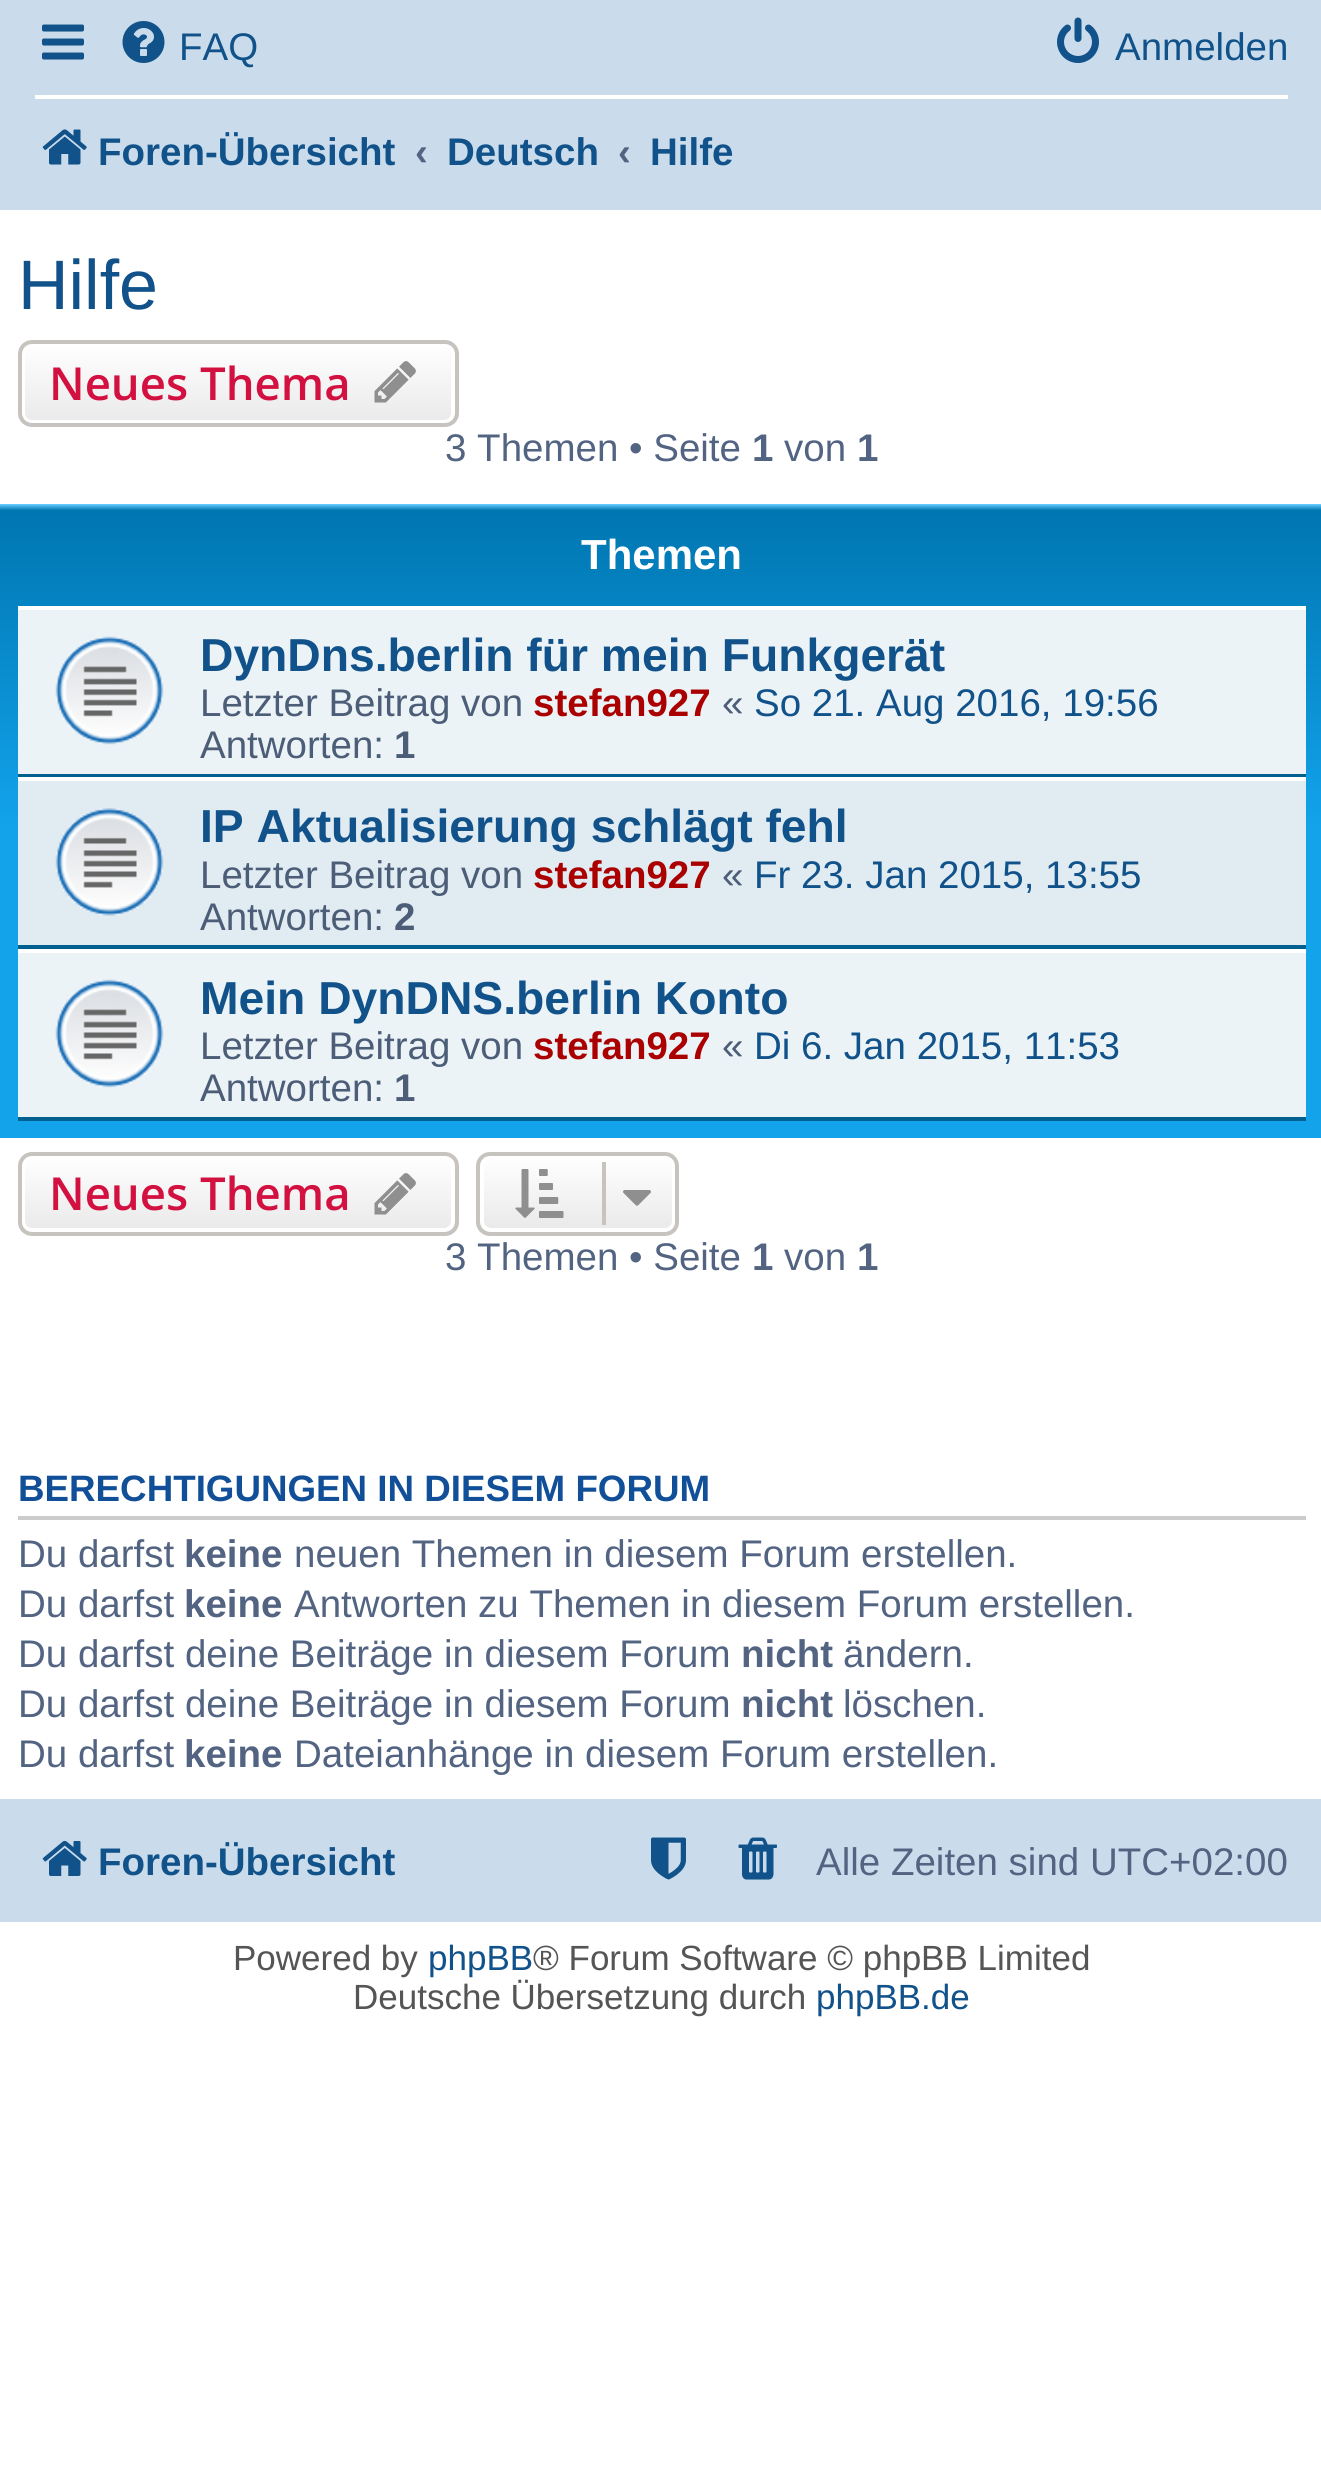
#include <cairo/cairo.h>
#include <math.h>
#include <stddef.h>

typedef struct { double x, y, w, h; unsigned color; } box_t;
static cairo_t *cr;

static void rgb(unsigned color)
{
	cairo_set_source_rgb(cr, (color >> 16) / 255.0, (color >> 8 & 255) / 255.0, (color & 255) / 255.0);
}

static void rrect(double x, double y, double w, double h, double r)
{
	cairo_new_sub_path(cr);
	cairo_arc(cr, x + w - r, y + h - r, r, 0, M_PI / 2);
	cairo_arc(cr, x + r, y + h - r, r, M_PI / 2, M_PI);
	cairo_arc(cr, x + r, y + r, r, M_PI, 1.5 * M_PI);
	cairo_arc(cr, x + w - r, y + r, r, 1.5 * M_PI, 2 * M_PI);
	cairo_close_path(cr);
}

static void image(const char *path, double x, double y, double w, double h)
{
	cairo_surface_t *image = cairo_image_surface_create_from_png(path);
	cairo_save(cr);
	cairo_set_source_surface(cr, image, x, y);
	cairo_rectangle(cr, x, y, w, h);
	cairo_fill(cr);
	cairo_restore(cr);
	cairo_surface_destroy(image);
}

int main(void) {
	cairo_surface_t *surface = cairo_image_surface_create(CAIRO_FORMAT_RGB24, 1321, 2470);
	cr = cairo_create(surface);
	cairo_font_options_t *options = cairo_font_options_create();
	cairo_font_options_set_hint_metrics(options, CAIRO_HINT_METRICS_OFF);
	cairo_font_options_set_hint_style(options, CAIRO_HINT_STYLE_NONE);
	cairo_set_font_options(cr, options);
	cairo_set_miter_limit(cr, 4);
	cairo_pattern_t *gradient;
	rgb(0xffffff);
	cairo_paint(cr);
	rgb(0xcadceb);
	cairo_rectangle(cr, 0, 0, 1321, 210);
	cairo_fill(cr);
	image("img/1.png", 42, 24, 42, 36);
	image("img/2.png", 122, 21, 43, 42);
	image("img/3.png", 1057, 17, 42, 46);
	rgb(0xffffff);
	cairo_rectangle(cr, 35, 95, 1253, 4);
	cairo_fill(cr);
	image("img/4.png", 42, 129, 45, 36);
	cairo_save(cr);
	rrect(18, 340, 441, 87, 14);
	cairo_clip(cr);
	gradient = cairo_pattern_create_linear(238, 343, 238, 424);
	cairo_pattern_add_color_stop_rgba(gradient, 0, 1, 1, 1, 1);
	cairo_pattern_add_color_stop_rgba(gradient, 1, 0.914, 0.914, 0.914, 1);
	cairo_set_source(cr, gradient);
	cairo_pattern_destroy(gradient);
	cairo_rectangle(cr, 18, 343, 441, 81);
	cairo_fill(cr);
	cairo_restore(cr);
	rrect(23, 345, 430, 77, 9);
	cairo_set_line_width(cr, 4);
	cairo_stroke(cr);
	rrect(20, 342, 437, 83, 12);
	rgb(0xc7c3bf);
	cairo_stroke(cr);
	image("img/5.png", 374, 361, 42, 42);
	gradient = cairo_pattern_create_linear(662, 504, 662, 1138);
	cairo_pattern_add_color_stop_rgba(gradient, 0, 0.416, 0.808, 1, 1);
	cairo_pattern_add_color_stop_rgba(gradient, 0.01, 0, 0.463, 0.694, 1);
	cairo_pattern_add_color_stop_rgba(gradient, 0.51, 0.071, 0.639, 0.922, 1);
	cairo_pattern_add_color_stop_rgba(gradient, 1, 0.071, 0.639, 0.922, 1);
	cairo_set_source(cr, gradient);
	cairo_pattern_destroy(gradient);
	cairo_rectangle(cr, 0, 504, 1321, 634);
	cairo_fill(cr);
	{
		static const box_t items[] = {
			{18, 610, 1288, 164, 0xecf3f7},
			{18, 606, 1288, 4, 0xffffff},
			{18, 774, 1288, 3, 0x00608f},
		};
		for (size_t i = 0; i < sizeof items / sizeof *items; i++) {
			rgb(items[i].color);
			cairo_rectangle(cr, items[i].x, items[i].y, items[i].w, items[i].h);
			cairo_fill(cr);
		}
	}
	image("img/6.png", 55, 636, 109, 109);
	{
		static const box_t items[] = {
			{18, 781, 1288, 164, 0xe1ebf2},
			{18, 777, 1288, 4, 0xffffff},
			{18, 945, 1288, 4, 0x00608f},
		};
		for (size_t i = 0; i < sizeof items / sizeof *items; i++) {
			rgb(items[i].color);
			cairo_rectangle(cr, items[i].x, items[i].y, items[i].w, items[i].h);
			cairo_fill(cr);
		}
	}
	image("img/7.png", 55, 808, 109, 108);
	{
		static const box_t items[] = {
			{18, 953, 1288, 164, 0xecf3f7},
			{18, 949, 1288, 4, 0xffffff},
			{18, 1117, 1288, 4, 0x00608f},
		};
		for (size_t i = 0; i < sizeof items / sizeof *items; i++) {
			rgb(items[i].color);
			cairo_rectangle(cr, items[i].x, items[i].y, items[i].w, items[i].h);
			cairo_fill(cr);
		}
	}
	image("img/6.png", 55, 979, 109, 109);
	cairo_save(cr);
	rrect(18, 1152, 441, 84, 14);
	cairo_clip(cr);
	gradient = cairo_pattern_create_linear(238, 1155, 238, 1232);
	cairo_pattern_add_color_stop_rgba(gradient, 0, 1, 1, 1, 1);
	cairo_pattern_add_color_stop_rgba(gradient, 1, 0.914, 0.914, 0.914, 1);
	cairo_set_source(cr, gradient);
	cairo_pattern_destroy(gradient);
	cairo_rectangle(cr, 18, 1155, 441, 77);
	cairo_fill(cr);
	cairo_restore(cr);
	rrect(23, 1157, 430, 73, 9);
	rgb(0xffffff);
	cairo_stroke(cr);
	rrect(20, 1154, 437, 80, 12);
	rgb(0xc7c3bf);
	cairo_stroke(cr);
	image("img/8.png", 374, 1173, 42, 42);
	cairo_save(cr);
	rrect(476, 1152, 203, 84, 14);
	cairo_clip(cr);
	gradient = cairo_pattern_create_linear(578, 1155, 578, 1232);
	cairo_pattern_add_color_stop_rgba(gradient, 0, 1, 1, 1, 1);
	cairo_pattern_add_color_stop_rgba(gradient, 1, 0.914, 0.914, 0.914, 1);
	cairo_set_source(cr, gradient);
	cairo_pattern_destroy(gradient);
	cairo_rectangle(cr, 476, 1155, 203, 77);
	cairo_fill(cr);
	cairo_restore(cr);
	rrect(482, 1157, 192, 73, 9);
	rgb(0xffffff);
	cairo_stroke(cr);
	rrect(478, 1154, 199, 80, 12);
	rgb(0xc7c3bf);
	cairo_stroke(cr);
	image("img/9.png", 515, 1169, 49, 49);
	cairo_rectangle(cr, 602, 1162, 4, 63);
	cairo_fill(cr);
	image("img/10.png", 623, 1190, 28, 16);
	rgb(0xcccccc);
	cairo_rectangle(cr, 18, 1516, 1288, 4);
	cairo_fill(cr);
	rgb(0xcadceb);
	cairo_rectangle(cr, 0, 1799, 1321, 123);
	cairo_fill(cr);
	image("img/11.png", 42, 1840, 45, 36);
	image("img/12.png", 651, 1837, 35, 43);
	image("img/13.png", 738, 1837, 39, 43);
	cairo_select_font_face(cr, "Liberation Sans", CAIRO_FONT_SLANT_NORMAL, CAIRO_FONT_WEIGHT_NORMAL);
	cairo_set_font_size(cr, 38.5);
	rgb(0x105289);
	cairo_move_to(cr, 179, 60);
	cairo_show_text(cr, "FAQ");
	cairo_move_to(cr, 1115, 60);
	cairo_show_text(cr, "Anmelden");
	cairo_select_font_face(cr, "Liberation Sans", CAIRO_FONT_SLANT_NORMAL, CAIRO_FONT_WEIGHT_BOLD);
	cairo_move_to(cr, 98, 165);
	cairo_show_text(cr, "Foren-Übersicht");
	rgb(0x536482);
	cairo_move_to(cr, 415, 165);
	cairo_show_text(cr, "‹");
	rgb(0x105289);
	cairo_move_to(cr, 447, 165);
	cairo_show_text(cr, "Deutsch");
	rgb(0x536482);
	cairo_move_to(cr, 618, 165);
	cairo_show_text(cr, "‹");
	rgb(0x105289);
	cairo_move_to(cr, 650, 165);
	cairo_show_text(cr, "Hilfe");
	cairo_select_font_face(cr, "Liberation Sans", CAIRO_FONT_SLANT_NORMAL, CAIRO_FONT_WEIGHT_NORMAL);
	cairo_set_font_size(cr, 70);
	cairo_move_to(cr, 18, 309);
	cairo_show_text(cr, "Hilfe");
	cairo_select_font_face(cr, "Open Sans SemiBold", CAIRO_FONT_SLANT_NORMAL, CAIRO_FONT_WEIGHT_NORMAL);
	cairo_set_font_size(cr, 45.5);
	rgb(0xd31141);
	cairo_move_to(cr, 49, 400);
	cairo_show_text(cr, "Neues Thema");
	cairo_select_font_face(cr, "Liberation Sans", CAIRO_FONT_SLANT_NORMAL, CAIRO_FONT_WEIGHT_NORMAL);
	cairo_set_font_size(cr, 38.5);
	rgb(0x536482);
	cairo_move_to(cr, 445, 461);
	cairo_show_text(cr, "3 Themen • Seite");
	cairo_select_font_face(cr, "Liberation Sans", CAIRO_FONT_SLANT_NORMAL, CAIRO_FONT_WEIGHT_BOLD);
	cairo_move_to(cr, 752, 461);
	cairo_show_text(cr, "1");
	cairo_select_font_face(cr, "Liberation Sans", CAIRO_FONT_SLANT_NORMAL, CAIRO_FONT_WEIGHT_NORMAL);
	cairo_move_to(cr, 784, 461);
	cairo_show_text(cr, "von");
	cairo_select_font_face(cr, "Liberation Sans", CAIRO_FONT_SLANT_NORMAL, CAIRO_FONT_WEIGHT_BOLD);
	cairo_move_to(cr, 857, 461);
	cairo_show_text(cr, "1");
	cairo_set_font_size(cr, 42);
	rgb(0xffffff);
	cairo_move_to(cr, 581, 569);
	cairo_show_text(cr, "Themen");
	cairo_set_font_size(cr, 46.25);
	rgb(0x105289);
	cairo_move_to(cr, 200, 671);
	cairo_show_text(cr, "DynDns.berlin für mein Funkgerät");
	cairo_select_font_face(cr, "Liberation Sans", CAIRO_FONT_SLANT_NORMAL, CAIRO_FONT_WEIGHT_NORMAL);
	cairo_set_font_size(cr, 38.5);
	rgb(0x4c5d77);
	cairo_move_to(cr, 200, 716);
	cairo_show_text(cr, "Letzter Beitrag von");
	cairo_select_font_face(cr, "Liberation Sans", CAIRO_FONT_SLANT_NORMAL, CAIRO_FONT_WEIGHT_BOLD);
	rgb(0xaa0000);
	cairo_move_to(cr, 533, 716);
	cairo_show_text(cr, "stefan927");
	cairo_select_font_face(cr, "Liberation Sans", CAIRO_FONT_SLANT_NORMAL, CAIRO_FONT_WEIGHT_NORMAL);
	rgb(0x4c5d77);
	cairo_move_to(cr, 722, 716);
	cairo_show_text(cr, "«");
	rgb(0x105289);
	cairo_move_to(cr, 754, 716);
	cairo_show_text(cr, "So 21. Aug 2016, 19:56");
	rgb(0x4c5d77);
	cairo_move_to(cr, 200, 758);
	cairo_show_text(cr, "Antworten:");
	cairo_select_font_face(cr, "Liberation Sans", CAIRO_FONT_SLANT_NORMAL, CAIRO_FONT_WEIGHT_BOLD);
	cairo_move_to(cr, 394, 758);
	cairo_show_text(cr, "1");
	cairo_set_font_size(cr, 46.25);
	rgb(0x105289);
	cairo_move_to(cr, 200, 842);
	cairo_show_text(cr, "IP Aktualisierung schlägt fehl");
	cairo_select_font_face(cr, "Liberation Sans", CAIRO_FONT_SLANT_NORMAL, CAIRO_FONT_WEIGHT_NORMAL);
	cairo_set_font_size(cr, 38.5);
	rgb(0x4c5d77);
	cairo_move_to(cr, 200, 888);
	cairo_show_text(cr, "Letzter Beitrag von");
	cairo_select_font_face(cr, "Liberation Sans", CAIRO_FONT_SLANT_NORMAL, CAIRO_FONT_WEIGHT_BOLD);
	rgb(0xaa0000);
	cairo_move_to(cr, 533, 888);
	cairo_show_text(cr, "stefan927");
	cairo_select_font_face(cr, "Liberation Sans", CAIRO_FONT_SLANT_NORMAL, CAIRO_FONT_WEIGHT_NORMAL);
	rgb(0x4c5d77);
	cairo_move_to(cr, 722, 888);
	cairo_show_text(cr, "«");
	rgb(0x105289);
	cairo_move_to(cr, 754, 888);
	cairo_show_text(cr, "Fr 23. Jan 2015, 13:55");
	rgb(0x4c5d77);
	cairo_move_to(cr, 200, 930);
	cairo_show_text(cr, "Antworten:");
	cairo_select_font_face(cr, "Liberation Sans", CAIRO_FONT_SLANT_NORMAL, CAIRO_FONT_WEIGHT_BOLD);
	cairo_move_to(cr, 394, 930);
	cairo_show_text(cr, "2");
	cairo_set_font_size(cr, 46.25);
	rgb(0x105289);
	cairo_move_to(cr, 200, 1014);
	cairo_show_text(cr, "Mein DynDNS.berlin Konto");
	cairo_select_font_face(cr, "Liberation Sans", CAIRO_FONT_SLANT_NORMAL, CAIRO_FONT_WEIGHT_NORMAL);
	cairo_set_font_size(cr, 38.5);
	rgb(0x4c5d77);
	cairo_move_to(cr, 200, 1059);
	cairo_show_text(cr, "Letzter Beitrag von");
	cairo_select_font_face(cr, "Liberation Sans", CAIRO_FONT_SLANT_NORMAL, CAIRO_FONT_WEIGHT_BOLD);
	rgb(0xaa0000);
	cairo_move_to(cr, 533, 1059);
	cairo_show_text(cr, "stefan927");
	cairo_select_font_face(cr, "Liberation Sans", CAIRO_FONT_SLANT_NORMAL, CAIRO_FONT_WEIGHT_NORMAL);
	rgb(0x4c5d77);
	cairo_move_to(cr, 722, 1059);
	cairo_show_text(cr, "«");
	rgb(0x105289);
	cairo_move_to(cr, 754, 1059);
	cairo_show_text(cr, "Di 6. Jan 2015, 11:53");
	rgb(0x4c5d77);
	cairo_move_to(cr, 200, 1101);
	cairo_show_text(cr, "Antworten:");
	cairo_select_font_face(cr, "Liberation Sans", CAIRO_FONT_SLANT_NORMAL, CAIRO_FONT_WEIGHT_BOLD);
	cairo_move_to(cr, 394, 1101);
	cairo_show_text(cr, "1");
	cairo_select_font_face(cr, "Open Sans SemiBold", CAIRO_FONT_SLANT_NORMAL, CAIRO_FONT_WEIGHT_NORMAL);
	cairo_set_font_size(cr, 45.5);
	rgb(0xd31141);
	cairo_move_to(cr, 49, 1210);
	cairo_show_text(cr, "Neues Thema");
	cairo_select_font_face(cr, "Liberation Sans", CAIRO_FONT_SLANT_NORMAL, CAIRO_FONT_WEIGHT_NORMAL);
	cairo_set_font_size(cr, 38.5);
	rgb(0x536482);
	cairo_move_to(cr, 445, 1270);
	cairo_show_text(cr, "3 Themen • Seite");
	cairo_select_font_face(cr, "Liberation Sans", CAIRO_FONT_SLANT_NORMAL, CAIRO_FONT_WEIGHT_BOLD);
	cairo_move_to(cr, 752, 1270);
	cairo_show_text(cr, "1");
	cairo_select_font_face(cr, "Liberation Sans", CAIRO_FONT_SLANT_NORMAL, CAIRO_FONT_WEIGHT_NORMAL);
	cairo_move_to(cr, 784, 1270);
	cairo_show_text(cr, "von");
	cairo_select_font_face(cr, "Liberation Sans", CAIRO_FONT_SLANT_NORMAL, CAIRO_FONT_WEIGHT_BOLD);
	cairo_move_to(cr, 857, 1270);
	cairo_show_text(cr, "1");
	cairo_set_font_size(cr, 36.75);
	rgb(0x115098);
	cairo_move_to(cr, 18, 1501);
	cairo_show_text(cr, "BERECHTIGUNGEN IN DIESEM FORUM");
	cairo_select_font_face(cr, "Liberation Sans", CAIRO_FONT_SLANT_NORMAL, CAIRO_FONT_WEIGHT_NORMAL);
	cairo_set_font_size(cr, 38.5);
	rgb(0x536482);
	cairo_move_to(cr, 18, 1567);
	cairo_show_text(cr, "Du darfst");
	cairo_select_font_face(cr, "Liberation Sans", CAIRO_FONT_SLANT_NORMAL, CAIRO_FONT_WEIGHT_BOLD);
	cairo_move_to(cr, 184, 1567);
	cairo_show_text(cr, "keine");
	cairo_select_font_face(cr, "Liberation Sans", CAIRO_FONT_SLANT_NORMAL, CAIRO_FONT_WEIGHT_NORMAL);
	cairo_move_to(cr, 294, 1567);
	cairo_show_text(cr, "neuen Themen in diesem Forum erstellen.");
	cairo_move_to(cr, 18, 1617);
	cairo_show_text(cr, "Du darfst");
	cairo_select_font_face(cr, "Liberation Sans", CAIRO_FONT_SLANT_NORMAL, CAIRO_FONT_WEIGHT_BOLD);
	cairo_move_to(cr, 184, 1617);
	cairo_show_text(cr, "keine");
	cairo_select_font_face(cr, "Liberation Sans", CAIRO_FONT_SLANT_NORMAL, CAIRO_FONT_WEIGHT_NORMAL);
	cairo_move_to(cr, 294, 1617);
	cairo_show_text(cr, "Antworten zu Themen in diesem Forum erstellen.");
	cairo_move_to(cr, 18, 1667);
	cairo_show_text(cr, "Du darfst deine Beiträge in diesem Forum");
	cairo_select_font_face(cr, "Liberation Sans", CAIRO_FONT_SLANT_NORMAL, CAIRO_FONT_WEIGHT_BOLD);
	cairo_move_to(cr, 741, 1667);
	cairo_show_text(cr, "nicht");
	cairo_select_font_face(cr, "Liberation Sans", CAIRO_FONT_SLANT_NORMAL, CAIRO_FONT_WEIGHT_NORMAL);
	cairo_move_to(cr, 843, 1667);
	cairo_show_text(cr, "ändern.");
	cairo_move_to(cr, 18, 1717);
	cairo_show_text(cr, "Du darfst deine Beiträge in diesem Forum");
	cairo_select_font_face(cr, "Liberation Sans", CAIRO_FONT_SLANT_NORMAL, CAIRO_FONT_WEIGHT_BOLD);
	cairo_move_to(cr, 741, 1717);
	cairo_show_text(cr, "nicht");
	cairo_select_font_face(cr, "Liberation Sans", CAIRO_FONT_SLANT_NORMAL, CAIRO_FONT_WEIGHT_NORMAL);
	cairo_move_to(cr, 843, 1717);
	cairo_show_text(cr, "löschen.");
	cairo_move_to(cr, 18, 1767);
	cairo_show_text(cr, "Du darfst");
	cairo_select_font_face(cr, "Liberation Sans", CAIRO_FONT_SLANT_NORMAL, CAIRO_FONT_WEIGHT_BOLD);
	cairo_move_to(cr, 184, 1767);
	cairo_show_text(cr, "keine");
	cairo_select_font_face(cr, "Liberation Sans", CAIRO_FONT_SLANT_NORMAL, CAIRO_FONT_WEIGHT_NORMAL);
	cairo_move_to(cr, 294, 1767);
	cairo_show_text(cr, "Dateianhänge in diesem Forum erstellen.");
	cairo_select_font_face(cr, "Liberation Sans", CAIRO_FONT_SLANT_NORMAL, CAIRO_FONT_WEIGHT_BOLD);
	rgb(0x105289);
	cairo_move_to(cr, 98, 1875);
	cairo_show_text(cr, "Foren-Übersicht");
	cairo_select_font_face(cr, "Liberation Sans", CAIRO_FONT_SLANT_NORMAL, CAIRO_FONT_WEIGHT_NORMAL);
	rgb(0x536482);
	cairo_move_to(cr, 816, 1875);
	cairo_show_text(cr, "Alle Zeiten sind UTC+02:00");
	cairo_set_font_size(cr, 35);
	rgb(0x555555);
	cairo_move_to(cr, 233, 1970);
	cairo_show_text(cr, "Powered by");
	rgb(0x105289);
	cairo_move_to(cr, 428, 1970);
	cairo_show_text(cr, "phpBB");
	rgb(0x555555);
	cairo_move_to(cr, 533, 1970);
	cairo_show_text(cr, "® Forum Software © phpBB Limited");
	cairo_move_to(cr, 353, 2009);
	cairo_show_text(cr, "Deutsche Übersetzung durch");
	rgb(0x105289);
	cairo_move_to(cr, 816, 2009);
	cairo_show_text(cr, "phpBB.de");
	cairo_surface_write_to_png(surface, "page.png");
	cairo_font_options_destroy(options);
	cairo_destroy(cr);
	cairo_surface_destroy(surface);
	return 0;
}
